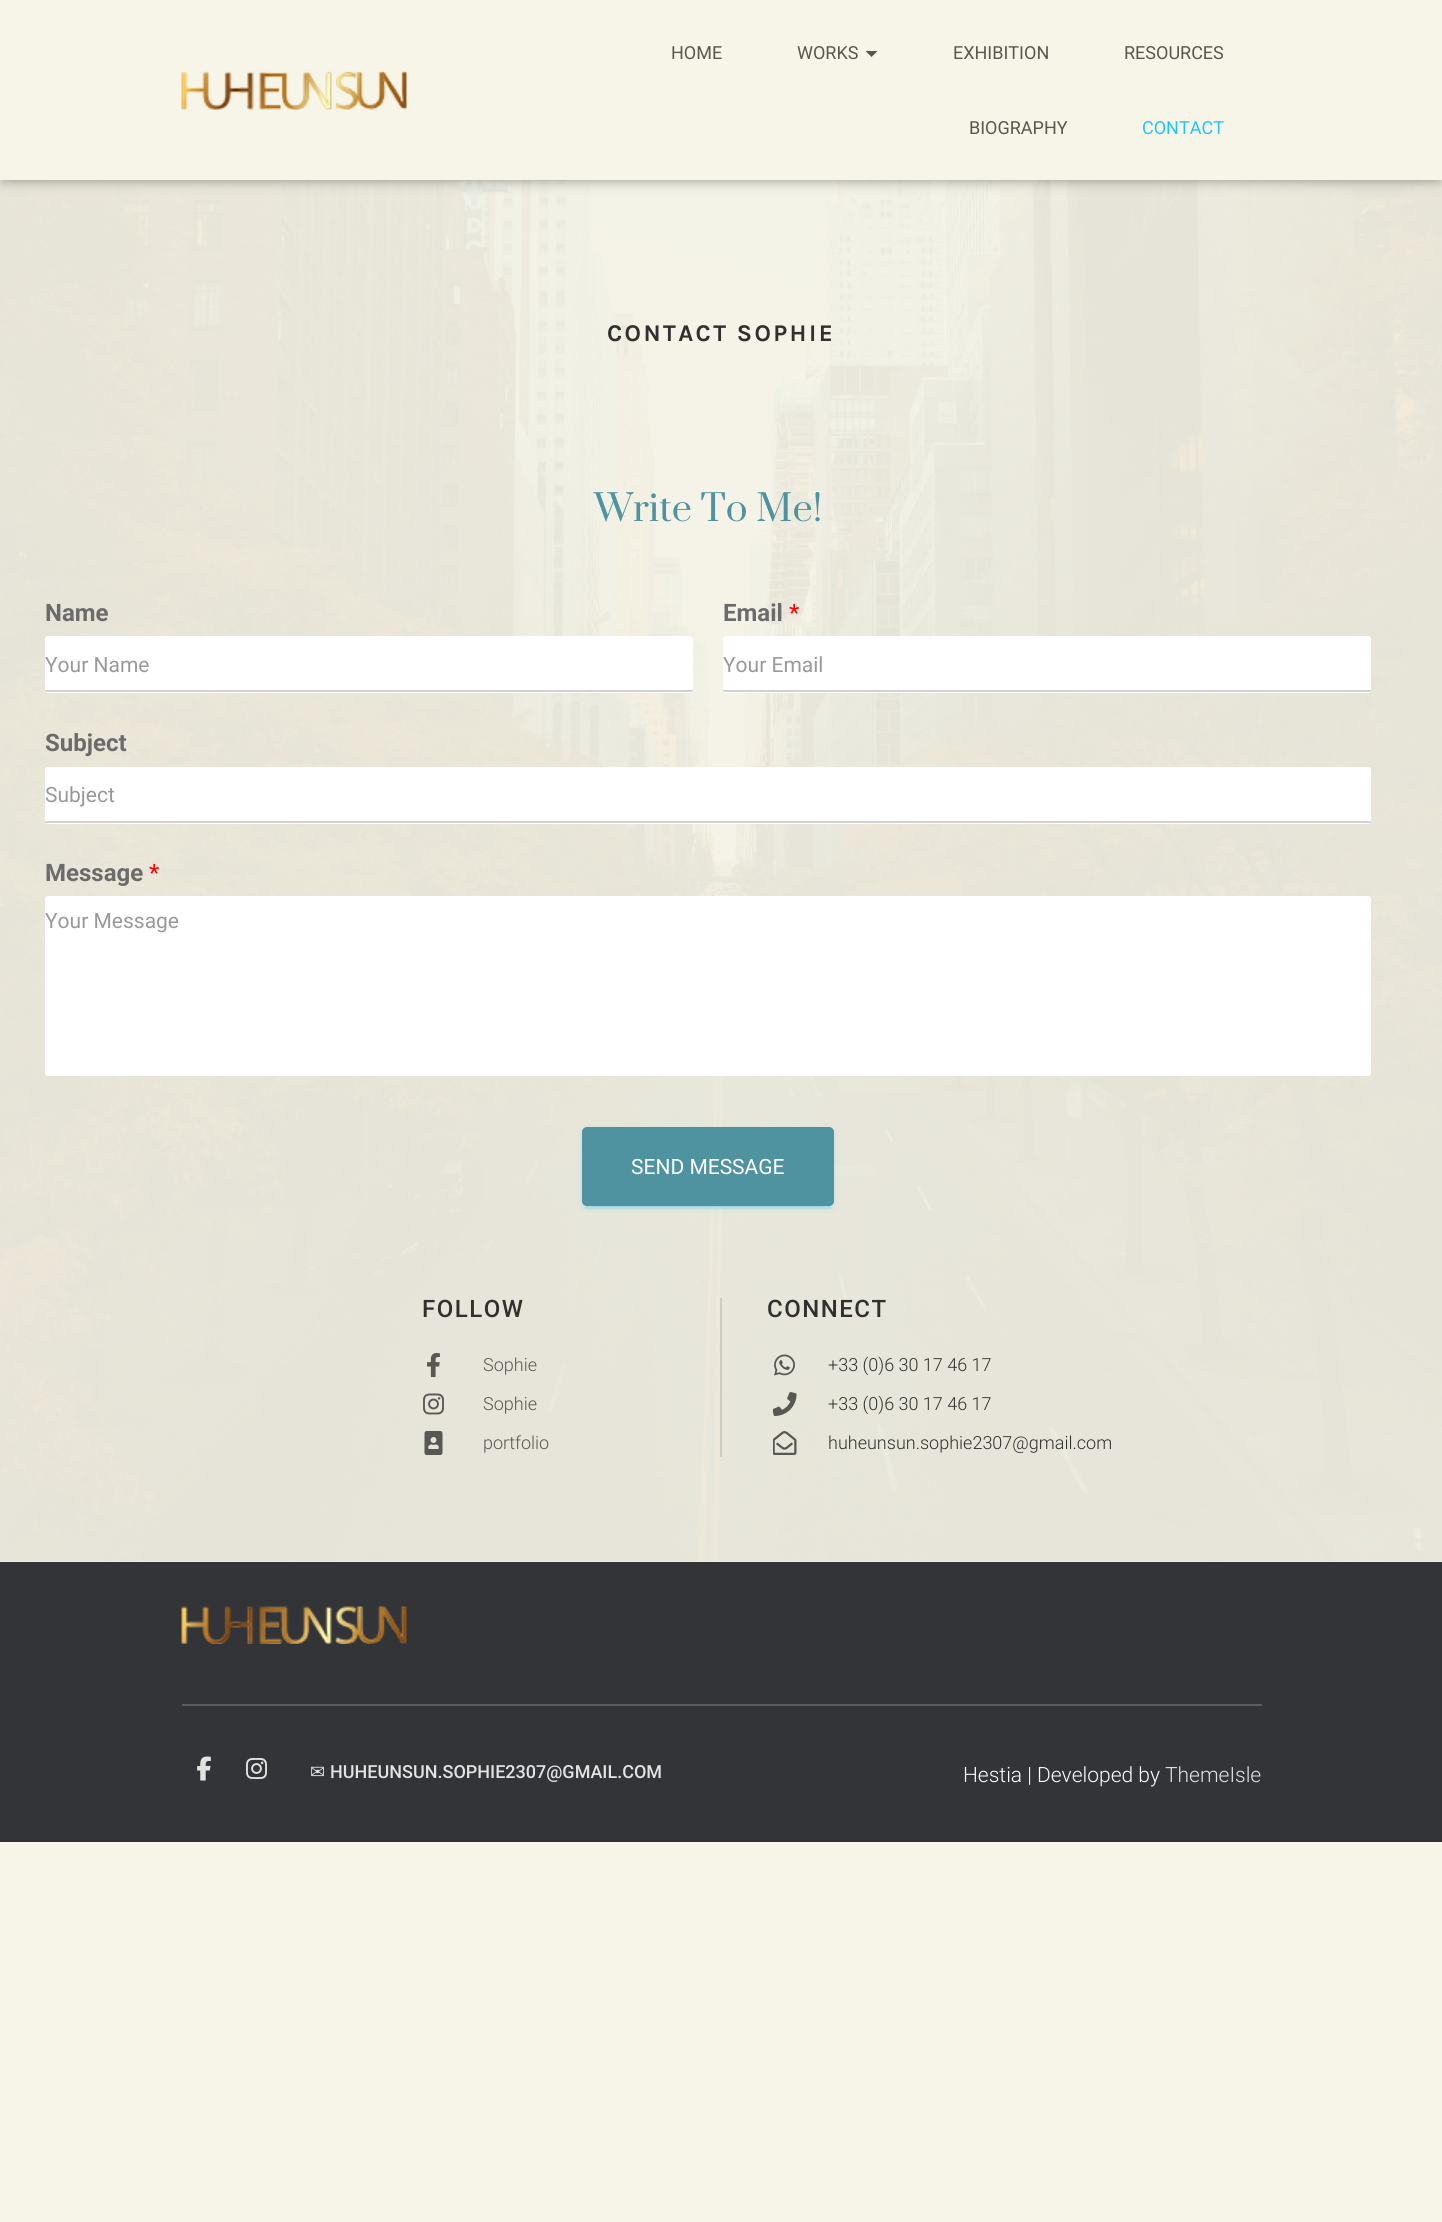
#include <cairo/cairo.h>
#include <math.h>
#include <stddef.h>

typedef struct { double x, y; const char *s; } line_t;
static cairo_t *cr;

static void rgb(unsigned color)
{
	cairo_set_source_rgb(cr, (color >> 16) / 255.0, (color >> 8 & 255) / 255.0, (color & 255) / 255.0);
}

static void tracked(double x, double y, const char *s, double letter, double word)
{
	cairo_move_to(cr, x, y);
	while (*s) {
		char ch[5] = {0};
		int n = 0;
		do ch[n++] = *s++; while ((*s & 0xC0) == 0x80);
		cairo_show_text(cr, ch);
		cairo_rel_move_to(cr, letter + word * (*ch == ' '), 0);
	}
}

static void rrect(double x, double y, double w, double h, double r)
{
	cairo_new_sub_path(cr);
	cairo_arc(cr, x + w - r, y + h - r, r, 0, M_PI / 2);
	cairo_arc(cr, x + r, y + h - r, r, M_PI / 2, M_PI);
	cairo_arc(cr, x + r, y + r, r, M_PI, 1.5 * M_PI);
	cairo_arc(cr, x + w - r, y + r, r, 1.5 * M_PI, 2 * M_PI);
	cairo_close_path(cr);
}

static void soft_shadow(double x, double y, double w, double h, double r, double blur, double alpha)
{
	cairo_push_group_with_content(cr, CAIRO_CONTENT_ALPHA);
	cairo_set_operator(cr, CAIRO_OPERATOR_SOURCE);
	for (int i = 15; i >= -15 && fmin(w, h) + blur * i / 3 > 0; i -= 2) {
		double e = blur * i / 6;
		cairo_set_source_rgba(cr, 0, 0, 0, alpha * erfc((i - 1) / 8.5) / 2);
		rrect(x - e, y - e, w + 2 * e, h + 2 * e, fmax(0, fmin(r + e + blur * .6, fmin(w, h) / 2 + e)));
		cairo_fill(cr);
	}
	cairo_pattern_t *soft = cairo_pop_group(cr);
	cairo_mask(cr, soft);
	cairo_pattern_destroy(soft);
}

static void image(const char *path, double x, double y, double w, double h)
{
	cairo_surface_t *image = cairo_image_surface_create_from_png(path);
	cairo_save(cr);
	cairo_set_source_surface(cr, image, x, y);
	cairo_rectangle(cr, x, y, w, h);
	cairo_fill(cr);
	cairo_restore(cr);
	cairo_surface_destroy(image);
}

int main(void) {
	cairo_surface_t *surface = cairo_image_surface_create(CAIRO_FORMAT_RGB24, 1442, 2222);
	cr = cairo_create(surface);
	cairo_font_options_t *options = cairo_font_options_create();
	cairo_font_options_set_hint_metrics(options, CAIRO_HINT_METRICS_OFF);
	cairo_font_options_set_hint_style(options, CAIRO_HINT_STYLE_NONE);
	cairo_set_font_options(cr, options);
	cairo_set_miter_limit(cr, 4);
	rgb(0xf7f5e8);
	cairo_paint(cr);
	image("img/2.png", 0, 180, 1442, 1382);
	rgb(0x000000);
	soft_shadow(3, 9, 1437, 174, 0, 4, 0.1);
	soft_shadow(0, 2, 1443, 180, 0, 7.5, 0.12);
	soft_shadow(9, 11, 1425, 162, 0, 7.5, 0.42);
	rgb(0xf7f5e8);
	cairo_rectangle(cr, 0, 0, 1442, 180);
	cairo_fill(cr);
	image("img/1.png", 181, 71, 226, 39);
	rgb(0x555555);
	cairo_new_path(cr);
	cairo_move_to(cr, 865.5, 51);
	cairo_line_to(cr, 877.5, 51);
	cairo_line_to(cr, 871.5, 57);
	cairo_close_path(cr);
	cairo_fill(cr);
	rgb(0xffffff);
	rrect(45, 636, 648, 57, 3);
	cairo_fill(cr);
	cairo_save(cr);
	rrect(45, 636, 648, 57, 3);
	cairo_clip(cr);
	rgb(0xd2d2d2);
	cairo_rectangle(cr, 45, 690, 648, 2);
	cairo_fill(cr);
	cairo_restore(cr);
	rrect(723, 636, 648, 57, 3);
	cairo_fill(cr);
	cairo_save(cr);
	rrect(723, 636, 648, 57, 3);
	cairo_clip(cr);
	rgb(0xd2d2d2);
	cairo_rectangle(cr, 723, 690, 648, 2);
	cairo_fill(cr);
	cairo_restore(cr);
	rrect(45, 767, 1326, 57, 3);
	cairo_fill(cr);
	cairo_save(cr);
	rrect(45, 767, 1326, 57, 3);
	cairo_clip(cr);
	rgb(0xd2d2d2);
	cairo_rectangle(cr, 45, 821, 1326, 2);
	cairo_fill(cr);
	cairo_restore(cr);
	rrect(45, 896, 1326, 180, 3);
	cairo_fill(cr);
	rgb(0x20c5f7);
	soft_shadow(582, 1128, 252, 80, 5, 4, 0.12);
	soft_shadow(585, 1134, 246, 74, 1.5, 1, 0.2);
	soft_shadow(582, 1130, 252, 79, 5, 1.5, 0.14);
	rgb(0x4f93a1);
	rrect(582, 1127, 252, 79, 5);
	cairo_fill(cr);
	cairo_set_source_rgba(cr, 0, 0, 0, 0.12);
	cairo_rectangle(cr, 720, 1298, 2, 159);
	cairo_fill(cr);
	image("img/3.png", 427, 1353, 13, 24);
	image("img/4.png", 423, 1393, 21, 22);
	image("img/5.png", 424, 1431, 19, 24);
	image("img/6.png", 774, 1354, 21, 22);
	image("img/7.png", 773, 1392, 24, 24);
	image("img/8.png", 773, 1431, 24, 24);
	rgb(0x323437);
	cairo_rectangle(cr, 0, 1562, 1442, 280);
	cairo_fill(cr);
	image("img/9.png", 181, 1606, 226, 38);
	rgb(0x5b5d5f);
	cairo_rectangle(cr, 182, 1704, 1080, 2);
	cairo_fill(cr);
	image("img/10.png", 197, 1756, 14, 25);
	image("img/11.png", 246, 1758, 21, 21);
	cairo_select_font_face(cr, "Roboto", CAIRO_FONT_SLANT_NORMAL, CAIRO_FONT_WEIGHT_NORMAL);
	cairo_set_font_size(cr, 18);
	rgb(0x585752);
	{
		static const line_t items[] = {
			{671, 59, "HOME"},
			{797, 59, "WORKS"},
			{953, 59, "EXHIBITION"},
			{1124, 59, "RESOURCES"},
			{969, 134, "BIOGRAPHY"},
		};
		for (size_t i = 0; i < sizeof items / sizeof *items; i++) {
			cairo_move_to(cr, items[i].x, items[i].y);
			cairo_show_text(cr, items[i].s);
		}
	}
	rgb(0x20c5f7);
	cairo_move_to(cr, 1142, 134);
	cairo_show_text(cr, "CONTACT");
	cairo_select_font_face(cr, "Karla", CAIRO_FONT_SLANT_NORMAL, CAIRO_FONT_WEIGHT_BOLD);
	cairo_set_font_size(cr, 24);
	rgb(0x31302e);
	tracked(607, 341, "CONTACT SOPHIE", 2.4, 0);
	cairo_select_font_face(cr, "Prata", CAIRO_FONT_SLANT_NORMAL, CAIRO_FONT_WEIGHT_NORMAL);
	cairo_set_font_size(cr, 36);
	rgb(0x4f93a1);
	cairo_move_to(cr, 594, 521);
	cairo_show_text(cr, "Write To Me!");
	cairo_select_font_face(cr, "Roboto", CAIRO_FONT_SLANT_NORMAL, CAIRO_FONT_WEIGHT_BOLD);
	cairo_set_font_size(cr, 24);
	rgb(0x6b6b6b);
	cairo_move_to(cr, 45, 621);
	cairo_show_text(cr, "Name");
	cairo_select_font_face(cr, "Roboto", CAIRO_FONT_SLANT_NORMAL, CAIRO_FONT_WEIGHT_NORMAL);
	cairo_set_font_size(cr, 21);
	rgb(0x999999);
	cairo_move_to(cr, 45, 672);
	cairo_show_text(cr, "Your Name");
	cairo_select_font_face(cr, "Roboto", CAIRO_FONT_SLANT_NORMAL, CAIRO_FONT_WEIGHT_BOLD);
	cairo_set_font_size(cr, 24);
	rgb(0x6b6b6b);
	cairo_move_to(cr, 723, 621);
	cairo_show_text(cr, "Email");
	cairo_select_font_face(cr, "Roboto", CAIRO_FONT_SLANT_NORMAL, CAIRO_FONT_WEIGHT_NORMAL);
	rgb(0xff0000);
	cairo_move_to(cr, 789, 621);
	cairo_show_text(cr, "*");
	cairo_set_font_size(cr, 21);
	rgb(0x999999);
	cairo_move_to(cr, 723, 672);
	cairo_show_text(cr, "Your Email");
	cairo_select_font_face(cr, "Roboto", CAIRO_FONT_SLANT_NORMAL, CAIRO_FONT_WEIGHT_BOLD);
	cairo_set_font_size(cr, 24);
	rgb(0x6b6b6b);
	cairo_move_to(cr, 45, 751);
	cairo_show_text(cr, "Subject");
	cairo_select_font_face(cr, "Roboto", CAIRO_FONT_SLANT_NORMAL, CAIRO_FONT_WEIGHT_NORMAL);
	cairo_set_font_size(cr, 21);
	rgb(0x999999);
	cairo_move_to(cr, 45, 802);
	cairo_show_text(cr, "Subject");
	cairo_select_font_face(cr, "Roboto", CAIRO_FONT_SLANT_NORMAL, CAIRO_FONT_WEIGHT_BOLD);
	cairo_set_font_size(cr, 24);
	rgb(0x6b6b6b);
	cairo_move_to(cr, 45, 881);
	cairo_show_text(cr, "Message");
	cairo_select_font_face(cr, "Roboto", CAIRO_FONT_SLANT_NORMAL, CAIRO_FONT_WEIGHT_NORMAL);
	rgb(0xff0000);
	cairo_move_to(cr, 149, 881);
	cairo_show_text(cr, "*");
	cairo_set_font_size(cr, 21);
	rgb(0x999999);
	cairo_move_to(cr, 45, 928);
	cairo_show_text(cr, "Your Message");
	rgb(0xffffff);
	cairo_move_to(cr, 631, 1174);
	cairo_show_text(cr, "SEND MESSAGE");
	cairo_select_font_face(cr, "Roboto Medium", CAIRO_FONT_SLANT_NORMAL, CAIRO_FONT_WEIGHT_NORMAL);
	cairo_set_font_size(cr, 24);
	rgb(0x31302e);
	tracked(422, 1317, "FOLLOW", 1.5, 0);
	cairo_select_font_face(cr, "Roboto Light", CAIRO_FONT_SLANT_NORMAL, CAIRO_FONT_WEIGHT_NORMAL);
	cairo_set_font_size(cr, 18);
	rgb(0x585752);
	{
		static const line_t items[] = {
			{483, 1371, "Sophie"},
			{483, 1410, "Sophie"},
			{483, 1449, "portfolio"},
		};
		for (size_t i = 0; i < sizeof items / sizeof *items; i++) {
			cairo_move_to(cr, items[i].x, items[i].y);
			cairo_show_text(cr, items[i].s);
		}
	}
	cairo_select_font_face(cr, "Roboto Medium", CAIRO_FONT_SLANT_NORMAL, CAIRO_FONT_WEIGHT_NORMAL);
	cairo_set_font_size(cr, 24);
	rgb(0x31302e);
	tracked(767, 1317, "CONNECT", 1.5, 0);
	cairo_select_font_face(cr, "Roboto Light", CAIRO_FONT_SLANT_NORMAL, CAIRO_FONT_WEIGHT_NORMAL);
	cairo_set_font_size(cr, 18);
	{
		static const line_t items[] = {
			{828, 1371, "+33 (0)6 30 17 46 17"},
			{828, 1410, "+33 (0)6 30 17 46 17"},
			{828, 1449, "huheunsun.sophie2307@gmail.com"},
		};
		for (size_t i = 0; i < sizeof items / sizeof *items; i++) {
			cairo_move_to(cr, items[i].x, items[i].y);
			cairo_show_text(cr, items[i].s);
		}
	}
	cairo_select_font_face(cr, "DejaVu Sans", CAIRO_FONT_SLANT_NORMAL, CAIRO_FONT_WEIGHT_NORMAL);
	rgb(0xe2e3e3);
	cairo_move_to(cr, 310, 1778);
	cairo_show_text(cr, "✉");
	cairo_select_font_face(cr, "Roboto Medium", CAIRO_FONT_SLANT_NORMAL, CAIRO_FONT_WEIGHT_NORMAL);
	cairo_move_to(cr, 330, 1778);
	cairo_show_text(cr, "HUHEUNSUN.SOPHIE2307@GMAIL.COM");
	cairo_select_font_face(cr, "Roboto Light", CAIRO_FONT_SLANT_NORMAL, CAIRO_FONT_WEIGHT_NORMAL);
	cairo_set_font_size(cr, 21);
	rgb(0xffffff);
	cairo_move_to(cr, 963, 1782);
	cairo_show_text(cr, "Hestia | Developed by");
	rgb(0xe2e3e3);
	cairo_move_to(cr, 1165, 1782);
	cairo_show_text(cr, "ThemeIsle");
	cairo_surface_write_to_png(surface, "page.png");
	cairo_font_options_destroy(options);
	cairo_destroy(cr);
	cairo_surface_destroy(surface);
	return 0;
}
